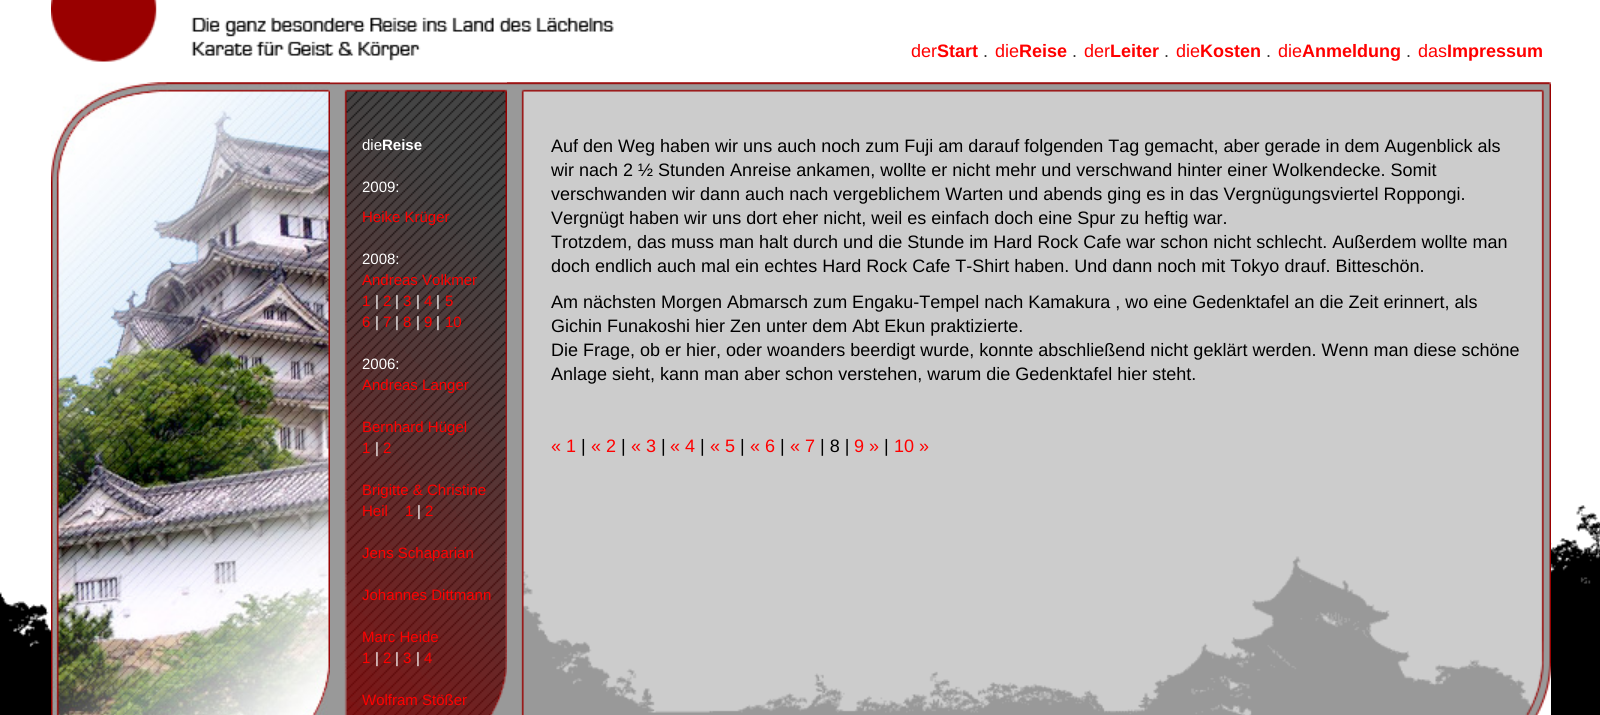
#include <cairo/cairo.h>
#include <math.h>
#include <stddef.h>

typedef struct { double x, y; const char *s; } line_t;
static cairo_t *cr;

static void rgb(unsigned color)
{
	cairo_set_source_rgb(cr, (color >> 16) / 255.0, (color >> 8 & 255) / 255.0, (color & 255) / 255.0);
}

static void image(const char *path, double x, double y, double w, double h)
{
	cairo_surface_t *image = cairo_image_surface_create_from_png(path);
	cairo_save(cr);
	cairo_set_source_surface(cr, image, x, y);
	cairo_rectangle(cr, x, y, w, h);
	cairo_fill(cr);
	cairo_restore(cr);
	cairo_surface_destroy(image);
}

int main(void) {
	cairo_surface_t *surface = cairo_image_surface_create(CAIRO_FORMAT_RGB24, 1600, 715);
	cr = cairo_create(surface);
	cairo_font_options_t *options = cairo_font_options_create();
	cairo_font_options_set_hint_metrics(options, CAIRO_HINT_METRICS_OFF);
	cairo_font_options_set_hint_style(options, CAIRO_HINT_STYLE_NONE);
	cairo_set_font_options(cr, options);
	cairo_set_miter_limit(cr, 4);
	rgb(0xffffff);
	cairo_paint(cr);
	image("img/1.png", 0, 505, 1600, 210);
	image("img/2.png", 51, 0, 563, 62);
	image("img/3.png", 51, 82, 279, 1);
	image("img/4.png", 51, 82, 279, 633);
	image("img/5.png", 330, 82, 177, 633);
	image("img/6.png", 507, 82, 1044, 1);
	image("img/7.png", 507, 82, 1044, 633);
	cairo_select_font_face(cr, "Liberation Sans", CAIRO_FONT_SLANT_NORMAL, CAIRO_FONT_WEIGHT_NORMAL);
	cairo_set_font_size(cr, 18);
	rgb(0xff0000);
	cairo_move_to(cr, 911, 57);
	cairo_show_text(cr, "der");
	cairo_select_font_face(cr, "Liberation Sans", CAIRO_FONT_SLANT_NORMAL, CAIRO_FONT_WEIGHT_BOLD);
	cairo_move_to(cr, 937, 57);
	cairo_show_text(cr, "Start");
	cairo_select_font_face(cr, "Liberation Sans", CAIRO_FONT_SLANT_NORMAL, CAIRO_FONT_WEIGHT_NORMAL);
	rgb(0x333333);
	cairo_move_to(cr, 983, 57);
	cairo_show_text(cr, ".");
	rgb(0xff0000);
	cairo_move_to(cr, 995, 57);
	cairo_show_text(cr, "die");
	cairo_select_font_face(cr, "Liberation Sans", CAIRO_FONT_SLANT_NORMAL, CAIRO_FONT_WEIGHT_BOLD);
	cairo_move_to(cr, 1019, 57);
	cairo_show_text(cr, "Reise");
	cairo_select_font_face(cr, "Liberation Sans", CAIRO_FONT_SLANT_NORMAL, CAIRO_FONT_WEIGHT_NORMAL);
	rgb(0x333333);
	cairo_move_to(cr, 1072, 57);
	cairo_show_text(cr, ".");
	rgb(0xff0000);
	cairo_move_to(cr, 1084, 57);
	cairo_show_text(cr, "der");
	cairo_select_font_face(cr, "Liberation Sans", CAIRO_FONT_SLANT_NORMAL, CAIRO_FONT_WEIGHT_BOLD);
	cairo_move_to(cr, 1110, 57);
	cairo_show_text(cr, "Leiter");
	cairo_select_font_face(cr, "Liberation Sans", CAIRO_FONT_SLANT_NORMAL, CAIRO_FONT_WEIGHT_NORMAL);
	rgb(0x333333);
	cairo_move_to(cr, 1164, 57);
	cairo_show_text(cr, ".");
	rgb(0xff0000);
	cairo_move_to(cr, 1176, 57);
	cairo_show_text(cr, "die");
	cairo_select_font_face(cr, "Liberation Sans", CAIRO_FONT_SLANT_NORMAL, CAIRO_FONT_WEIGHT_BOLD);
	cairo_move_to(cr, 1200, 57);
	cairo_show_text(cr, "Kosten");
	cairo_select_font_face(cr, "Liberation Sans", CAIRO_FONT_SLANT_NORMAL, CAIRO_FONT_WEIGHT_NORMAL);
	rgb(0x333333);
	cairo_move_to(cr, 1266, 57);
	cairo_show_text(cr, ".");
	rgb(0xff0000);
	cairo_move_to(cr, 1278, 57);
	cairo_show_text(cr, "die");
	cairo_select_font_face(cr, "Liberation Sans", CAIRO_FONT_SLANT_NORMAL, CAIRO_FONT_WEIGHT_BOLD);
	cairo_move_to(cr, 1302, 57);
	cairo_show_text(cr, "Anmeldung");
	cairo_select_font_face(cr, "Liberation Sans", CAIRO_FONT_SLANT_NORMAL, CAIRO_FONT_WEIGHT_NORMAL);
	rgb(0x333333);
	cairo_move_to(cr, 1406, 57);
	cairo_show_text(cr, ".");
	rgb(0xff0000);
	cairo_move_to(cr, 1418, 57);
	cairo_show_text(cr, "das");
	cairo_select_font_face(cr, "Liberation Sans", CAIRO_FONT_SLANT_NORMAL, CAIRO_FONT_WEIGHT_BOLD);
	cairo_move_to(cr, 1447, 57);
	cairo_show_text(cr, "Impressum");
	cairo_select_font_face(cr, "Liberation Sans", CAIRO_FONT_SLANT_NORMAL, CAIRO_FONT_WEIGHT_NORMAL);
	cairo_set_font_size(cr, 15);
	rgb(0xffffff);
	cairo_move_to(cr, 362, 150);
	cairo_show_text(cr, "die");
	cairo_select_font_face(cr, "Liberation Sans", CAIRO_FONT_SLANT_NORMAL, CAIRO_FONT_WEIGHT_BOLD);
	cairo_move_to(cr, 382, 150);
	cairo_show_text(cr, "Reise");
	cairo_select_font_face(cr, "Liberation Sans", CAIRO_FONT_SLANT_NORMAL, CAIRO_FONT_WEIGHT_NORMAL);
	cairo_move_to(cr, 362, 192);
	cairo_show_text(cr, "2009:");
	rgb(0xff0000);
	cairo_move_to(cr, 362, 222);
	cairo_show_text(cr, "Heike Krüger");
	rgb(0xffffff);
	cairo_move_to(cr, 362, 264);
	cairo_show_text(cr, "2008:");
	rgb(0xff0000);
	cairo_move_to(cr, 362, 285);
	cairo_show_text(cr, "Andreas Volkmer");
	cairo_move_to(cr, 362, 306);
	cairo_show_text(cr, "1");
	rgb(0xffffff);
	cairo_move_to(cr, 375, 306);
	cairo_show_text(cr, "|");
	rgb(0xff0000);
	cairo_move_to(cr, 383, 306);
	cairo_show_text(cr, "2");
	rgb(0xffffff);
	cairo_move_to(cr, 395, 306);
	cairo_show_text(cr, "|");
	rgb(0xff0000);
	cairo_move_to(cr, 403, 306);
	cairo_show_text(cr, "3");
	rgb(0xffffff);
	cairo_move_to(cr, 416, 306);
	cairo_show_text(cr, "|");
	rgb(0xff0000);
	cairo_move_to(cr, 424, 306);
	cairo_show_text(cr, "4");
	rgb(0xffffff);
	cairo_move_to(cr, 436, 306);
	cairo_show_text(cr, "|");
	rgb(0xff0000);
	cairo_move_to(cr, 445, 306);
	cairo_show_text(cr, "5");
	cairo_move_to(cr, 362, 327);
	cairo_show_text(cr, "6");
	rgb(0xffffff);
	cairo_move_to(cr, 375, 327);
	cairo_show_text(cr, "|");
	rgb(0xff0000);
	cairo_move_to(cr, 383, 327);
	cairo_show_text(cr, "7");
	rgb(0xffffff);
	cairo_move_to(cr, 395, 327);
	cairo_show_text(cr, "|");
	rgb(0xff0000);
	cairo_move_to(cr, 403, 327);
	cairo_show_text(cr, "8");
	rgb(0xffffff);
	cairo_move_to(cr, 416, 327);
	cairo_show_text(cr, "|");
	rgb(0xff0000);
	cairo_move_to(cr, 424, 327);
	cairo_show_text(cr, "9");
	rgb(0xffffff);
	cairo_move_to(cr, 436, 327);
	cairo_show_text(cr, "|");
	rgb(0xff0000);
	cairo_move_to(cr, 445, 327);
	cairo_show_text(cr, "10");
	rgb(0xffffff);
	cairo_move_to(cr, 362, 369);
	cairo_show_text(cr, "2006:");
	rgb(0xff0000);
	{
		static const line_t items[] = {
			{362, 390, "Andreas Langer"},
			{362, 432, "Bernhard Hügel"},
			{362, 453, "1"},
		};
		for (size_t i = 0; i < sizeof items / sizeof *items; i++) {
			cairo_move_to(cr, items[i].x, items[i].y);
			cairo_show_text(cr, items[i].s);
		}
	}
	rgb(0xffffff);
	cairo_move_to(cr, 375, 453);
	cairo_show_text(cr, "|");
	rgb(0xff0000);
	{
		static const line_t items[] = {
			{383, 453, "2"},
			{362, 495, "Brigitte & Christine"},
			{362, 516, "Heil"},
			{405, 516, "1"},
		};
		for (size_t i = 0; i < sizeof items / sizeof *items; i++) {
			cairo_move_to(cr, items[i].x, items[i].y);
			cairo_show_text(cr, items[i].s);
		}
	}
	rgb(0xffffff);
	cairo_move_to(cr, 417, 516);
	cairo_show_text(cr, "|");
	rgb(0xff0000);
	{
		static const line_t items[] = {
			{425, 516, "2"},
			{362, 558, "Jens Schaparian"},
			{362, 600, "Johannes Dittmann"},
			{362, 642, "Marc Heide"},
			{362, 663, "1"},
		};
		for (size_t i = 0; i < sizeof items / sizeof *items; i++) {
			cairo_move_to(cr, items[i].x, items[i].y);
			cairo_show_text(cr, items[i].s);
		}
	}
	rgb(0xffffff);
	cairo_move_to(cr, 375, 663);
	cairo_show_text(cr, "|");
	rgb(0xff0000);
	cairo_move_to(cr, 383, 663);
	cairo_show_text(cr, "2");
	rgb(0xffffff);
	cairo_move_to(cr, 395, 663);
	cairo_show_text(cr, "|");
	rgb(0xff0000);
	cairo_move_to(cr, 403, 663);
	cairo_show_text(cr, "3");
	rgb(0xffffff);
	cairo_move_to(cr, 416, 663);
	cairo_show_text(cr, "|");
	rgb(0xff0000);
	cairo_move_to(cr, 424, 663);
	cairo_show_text(cr, "4");
	cairo_move_to(cr, 362, 705);
	cairo_show_text(cr, "Wolfram Stößer");
	cairo_set_font_size(cr, 18);
	rgb(0x000000);
	{
		static const line_t items[] = {
			{551, 152, "Auf den Weg haben wir uns auch noch zum Fuji am darauf folgenden Tag gemacht, aber gerade in dem Augenblick als"},
			{551, 176, "wir nach 2 ½ Stunden Anreise ankamen, wollte er nicht mehr und verschwand hinter einer Wolkendecke. Somit"},
			{551, 200, "verschwanden wir dann auch nach vergeblichem Warten und abends ging es in das Vergnügungsviertel Roppongi."},
			{551, 224, "Vergnügt haben wir uns dort eher nicht, weil es einfach doch eine Spur zu heftig war."},
			{551, 248, "Trotzdem, das muss man halt durch und die Stunde im Hard Rock Cafe war schon nicht schlecht. Außerdem wollte man"},
			{551, 272, "doch endlich auch mal ein echtes Hard Rock Cafe T-Shirt haben. Und dann noch mit Tokyo drauf. Bitteschön."},
			{551, 308, "Am nächsten Morgen Abmarsch zum Engaku-Tempel nach Kamakura , wo eine Gedenktafel an die Zeit erinnert, als"},
			{551, 332, "Gichin Funakoshi hier Zen unter dem Abt Ekun praktizierte."},
			{551, 356, "Die Frage, ob er hier, oder woanders beerdigt wurde, konnte abschließend nicht geklärt werden. Wenn man diese schöne"},
			{551, 380, "Anlage sieht, kann man aber schon verstehen, warum die Gedenktafel hier steht."},
		};
		for (size_t i = 0; i < sizeof items / sizeof *items; i++) {
			cairo_move_to(cr, items[i].x, items[i].y);
			cairo_show_text(cr, items[i].s);
		}
	}
	rgb(0xff0000);
	cairo_move_to(cr, 551, 452);
	cairo_show_text(cr, "« 1");
	rgb(0x000000);
	cairo_move_to(cr, 581, 452);
	cairo_show_text(cr, "|");
	rgb(0xff0000);
	cairo_move_to(cr, 591, 452);
	cairo_show_text(cr, "« 2");
	rgb(0x000000);
	cairo_move_to(cr, 621, 452);
	cairo_show_text(cr, "|");
	rgb(0xff0000);
	cairo_move_to(cr, 631, 452);
	cairo_show_text(cr, "« 3");
	rgb(0x000000);
	cairo_move_to(cr, 661, 452);
	cairo_show_text(cr, "|");
	rgb(0xff0000);
	cairo_move_to(cr, 670, 452);
	cairo_show_text(cr, "« 4");
	rgb(0x000000);
	cairo_move_to(cr, 700, 452);
	cairo_show_text(cr, "|");
	rgb(0xff0000);
	cairo_move_to(cr, 710, 452);
	cairo_show_text(cr, "« 5");
	rgb(0x000000);
	cairo_move_to(cr, 740, 452);
	cairo_show_text(cr, "|");
	rgb(0xff0000);
	cairo_move_to(cr, 750, 452);
	cairo_show_text(cr, "« 6");
	rgb(0x000000);
	cairo_move_to(cr, 780, 452);
	cairo_show_text(cr, "|");
	rgb(0xff0000);
	cairo_move_to(cr, 790, 452);
	cairo_show_text(cr, "« 7");
	rgb(0x000000);
	cairo_move_to(cr, 820, 452);
	cairo_show_text(cr, "| 8 |");
	rgb(0xff0000);
	cairo_move_to(cr, 854, 452);
	cairo_show_text(cr, "9 »");
	rgb(0x000000);
	cairo_move_to(cr, 884, 452);
	cairo_show_text(cr, "|");
	rgb(0xff0000);
	cairo_move_to(cr, 894, 452);
	cairo_show_text(cr, "10 »");
	cairo_surface_write_to_png(surface, "page.png");
	cairo_font_options_destroy(options);
	cairo_destroy(cr);
	cairo_surface_destroy(surface);
	return 0;
}
